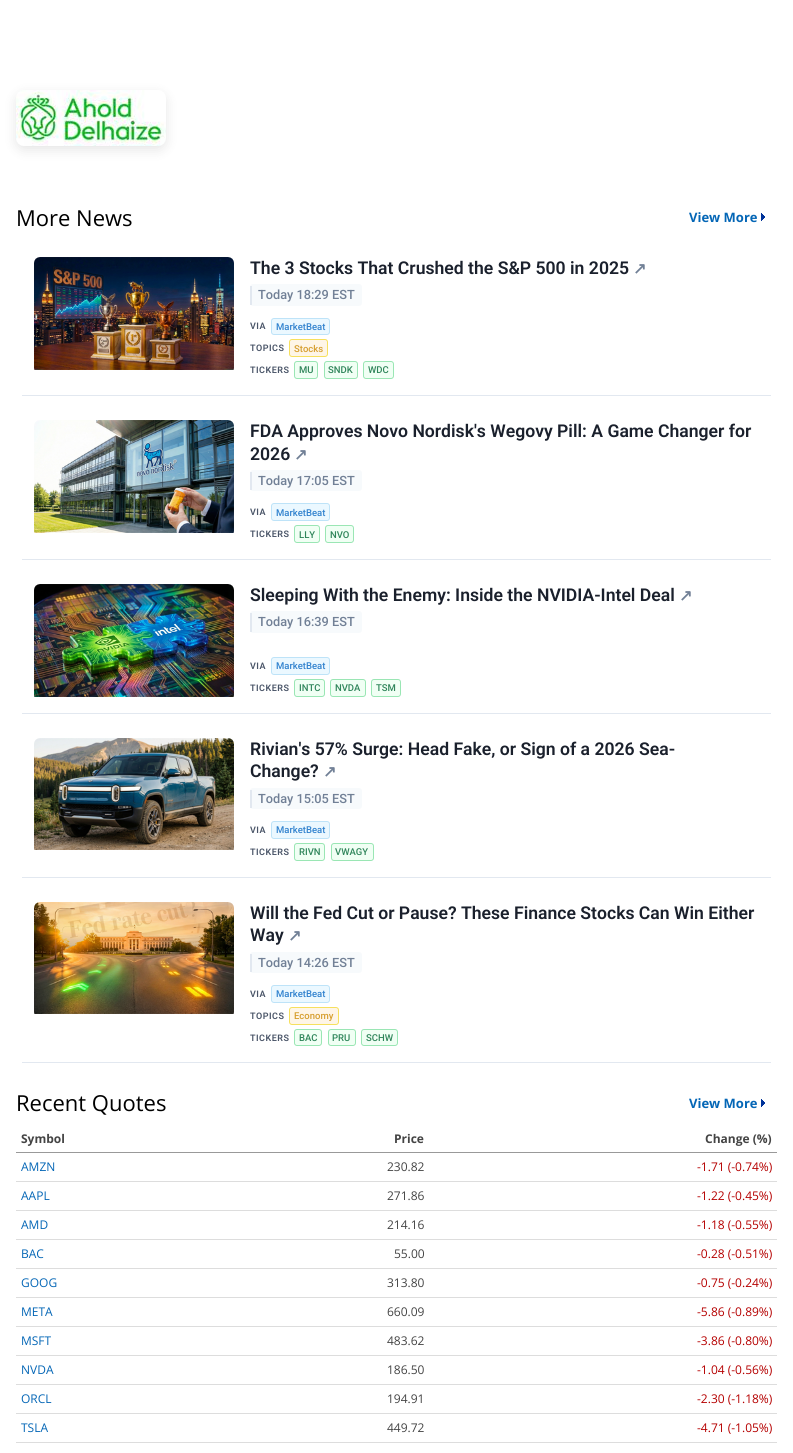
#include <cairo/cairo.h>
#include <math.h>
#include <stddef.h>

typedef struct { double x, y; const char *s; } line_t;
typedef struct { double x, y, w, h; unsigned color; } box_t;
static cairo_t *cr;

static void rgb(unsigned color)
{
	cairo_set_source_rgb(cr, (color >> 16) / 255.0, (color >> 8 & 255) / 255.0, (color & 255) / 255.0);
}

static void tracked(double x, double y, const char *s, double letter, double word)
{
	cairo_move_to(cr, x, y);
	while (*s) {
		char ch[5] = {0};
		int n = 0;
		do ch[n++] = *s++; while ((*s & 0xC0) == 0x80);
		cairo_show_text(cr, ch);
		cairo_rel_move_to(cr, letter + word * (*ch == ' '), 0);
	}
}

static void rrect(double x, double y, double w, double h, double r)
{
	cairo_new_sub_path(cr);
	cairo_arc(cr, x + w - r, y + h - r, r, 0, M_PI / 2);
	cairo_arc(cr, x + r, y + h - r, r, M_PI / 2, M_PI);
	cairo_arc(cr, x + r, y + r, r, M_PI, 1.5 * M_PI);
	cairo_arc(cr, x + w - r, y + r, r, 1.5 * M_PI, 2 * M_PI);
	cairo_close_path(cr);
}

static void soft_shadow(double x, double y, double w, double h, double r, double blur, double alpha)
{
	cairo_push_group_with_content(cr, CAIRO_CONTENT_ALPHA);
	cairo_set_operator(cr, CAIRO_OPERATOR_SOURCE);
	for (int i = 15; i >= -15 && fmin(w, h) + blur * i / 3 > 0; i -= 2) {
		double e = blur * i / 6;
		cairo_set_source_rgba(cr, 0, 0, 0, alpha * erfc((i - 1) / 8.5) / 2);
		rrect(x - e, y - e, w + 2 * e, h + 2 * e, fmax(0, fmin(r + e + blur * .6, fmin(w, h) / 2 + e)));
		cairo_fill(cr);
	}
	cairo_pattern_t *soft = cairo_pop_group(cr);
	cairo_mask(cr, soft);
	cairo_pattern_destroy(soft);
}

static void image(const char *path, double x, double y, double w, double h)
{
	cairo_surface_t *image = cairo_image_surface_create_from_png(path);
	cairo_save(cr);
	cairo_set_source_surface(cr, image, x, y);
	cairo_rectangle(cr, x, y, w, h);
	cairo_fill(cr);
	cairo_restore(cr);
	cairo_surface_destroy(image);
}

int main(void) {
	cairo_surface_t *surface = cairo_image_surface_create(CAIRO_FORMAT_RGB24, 793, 1453);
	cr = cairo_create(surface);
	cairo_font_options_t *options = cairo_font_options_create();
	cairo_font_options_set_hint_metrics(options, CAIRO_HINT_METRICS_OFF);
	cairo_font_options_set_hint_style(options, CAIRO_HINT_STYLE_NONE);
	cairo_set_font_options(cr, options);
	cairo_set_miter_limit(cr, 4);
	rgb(0xffffff);
	cairo_paint(cr);
	rgb(0x000000);
	soft_shadow(16, 94, 150, 56, 8, 6, 0.1);
	image("img/1.png", 16, 90, 150, 56);
	image("img/2.png", 761, 213, 4, 8);
	rgb(0xe2e8f0);
	cairo_rectangle(cr, 22, 395, 749, 1);
	cairo_fill(cr);
	image("img/3.png", 34, 257, 200, 113);
	rgb(0xf7fafc);
	rrect(250, 284, 112, 22, 3);
	cairo_fill(cr);
	rgb(0xe2e8f0);
	cairo_rectangle(cr, 250, 286, 2, 19);
	cairo_fill(cr);
	rgb(0xebf8ff);
	rrect(271.5, 318.5, 58, 16, 2.5);
	cairo_fill_preserve(cr);
	rgb(0xbee3f8);
	cairo_set_line_width(cr, 1);
	cairo_stroke(cr);
	rgb(0xfef5e7);
	rrect(289.5, 339.5, 38, 17, 2.5);
	cairo_fill_preserve(cr);
	rgb(0xf6e05e);
	cairo_stroke(cr);
	rgb(0xf0fff4);
	rrect(294.5, 361.5, 23, 17, 2.5);
	cairo_fill_preserve(cr);
	rgb(0x9ae6b4);
	cairo_stroke(cr);
	rgb(0xf0fff4);
	rrect(324.5, 361.5, 33, 17, 2.5);
	cairo_fill_preserve(cr);
	rgb(0x9ae6b4);
	cairo_stroke(cr);
	rgb(0xf0fff4);
	rrect(363.5, 361.5, 30, 17, 2.5);
	cairo_fill_preserve(cr);
	rgb(0x9ae6b4);
	cairo_stroke(cr);
	rgb(0xe2e8f0);
	cairo_rectangle(cr, 22, 559, 749, 1);
	cairo_fill(cr);
	image("img/4.png", 34, 420, 200, 113);
	rgb(0xf7fafc);
	rrect(250, 470, 112, 21, 3);
	cairo_fill(cr);
	rgb(0xe2e8f0);
	cairo_rectangle(cr, 250, 472, 2, 18);
	cairo_fill(cr);
	rgb(0xebf8ff);
	rrect(271.5, 503.5, 58, 17, 2.5);
	cairo_fill_preserve(cr);
	rgb(0xbee3f8);
	cairo_stroke(cr);
	rgb(0xf0fff4);
	rrect(294.5, 525.5, 25, 17, 2.5);
	cairo_fill_preserve(cr);
	rgb(0x9ae6b4);
	cairo_stroke(cr);
	rgb(0xf0fff4);
	rrect(325.5, 525.5, 28, 17, 2.5);
	cairo_fill_preserve(cr);
	rgb(0x9ae6b4);
	cairo_stroke(cr);
	rgb(0xe2e8f0);
	cairo_rectangle(cr, 22, 713, 749, 1);
	cairo_fill(cr);
	image("img/5.png", 34, 584, 200, 113);
	rgb(0xf7fafc);
	rrect(250, 611, 112, 22, 3);
	cairo_fill(cr);
	rgb(0xe2e8f0);
	cairo_rectangle(cr, 250, 613, 2, 19);
	cairo_fill(cr);
	rgb(0xebf8ff);
	rrect(271.5, 657.5, 58, 17, 2.5);
	cairo_fill_preserve(cr);
	rgb(0xbee3f8);
	cairo_stroke(cr);
	rgb(0xf0fff4);
	rrect(294.5, 679.5, 30, 17, 2.5);
	cairo_fill_preserve(cr);
	rgb(0x9ae6b4);
	cairo_stroke(cr);
	rgb(0xf0fff4);
	rrect(330.5, 679.5, 35, 17, 2.5);
	cairo_fill_preserve(cr);
	rgb(0x9ae6b4);
	cairo_stroke(cr);
	rgb(0xf0fff4);
	rrect(371.5, 679.5, 29, 17, 2.5);
	cairo_fill_preserve(cr);
	rgb(0x9ae6b4);
	cairo_stroke(cr);
	rgb(0xe2e8f0);
	cairo_rectangle(cr, 22, 877, 749, 1);
	cairo_fill(cr);
	image("img/6.png", 34, 738, 200, 112);
	rgb(0xf7fafc);
	rrect(250, 788, 112, 21, 3);
	cairo_fill(cr);
	rgb(0xe2e8f0);
	cairo_rectangle(cr, 250, 790, 2, 18);
	cairo_fill(cr);
	rgb(0xebf8ff);
	rrect(271.5, 821.5, 58, 17, 2.5);
	cairo_fill_preserve(cr);
	rgb(0xbee3f8);
	cairo_stroke(cr);
	rgb(0xf0fff4);
	rrect(294.5, 843.5, 30, 17, 2.5);
	cairo_fill_preserve(cr);
	rgb(0x9ae6b4);
	cairo_stroke(cr);
	rgb(0xf0fff4);
	rrect(331.5, 843.5, 42, 17, 2.5);
	cairo_fill_preserve(cr);
	rgb(0x9ae6b4);
	cairo_stroke(cr);
	rgb(0xe2e8f0);
	cairo_rectangle(cr, 22, 1062, 749, 1);
	cairo_fill(cr);
	image("img/7.png", 34, 902, 200, 112);
	rgb(0xf7fafc);
	rrect(250, 952, 112, 21, 3);
	cairo_fill(cr);
	rgb(0xe2e8f0);
	cairo_rectangle(cr, 250, 954, 2, 18);
	cairo_fill(cr);
	rgb(0xebf8ff);
	rrect(271.5, 985.5, 58, 17, 2.5);
	cairo_fill_preserve(cr);
	rgb(0xbee3f8);
	cairo_stroke(cr);
	rgb(0xfef5e7);
	rrect(289.5, 1007.5, 49, 17, 2.5);
	cairo_fill_preserve(cr);
	rgb(0xf6e05e);
	cairo_stroke(cr);
	rgb(0xf0fff4);
	rrect(294.5, 1029.5, 27, 16, 2.5);
	cairo_fill_preserve(cr);
	rgb(0x9ae6b4);
	cairo_stroke(cr);
	rgb(0xf0fff4);
	rrect(328.5, 1029.5, 27, 16, 2.5);
	cairo_fill_preserve(cr);
	rgb(0x9ae6b4);
	cairo_stroke(cr);
	rgb(0xf0fff4);
	rrect(361.5, 1029.5, 36, 16, 2.5);
	cairo_fill_preserve(cr);
	rgb(0x9ae6b4);
	cairo_stroke(cr);
	image("img/2.png", 761, 1099, 4, 8);
	{
		static const box_t items[] = {
			{16, 1152, 761, 1, 0x999999},
			{16, 1181, 761, 1, 0xdddddd},
			{16, 1210, 761, 1, 0xdddddd},
			{16, 1239, 761, 1, 0xdddddd},
			{16, 1268, 761, 1, 0xdddddd},
			{16, 1297, 761, 1, 0xdddddd},
			{16, 1326, 761, 1, 0xdddddd},
			{16, 1355, 761, 1, 0xdddddd},
			{16, 1384, 761, 1, 0xdddddd},
			{16, 1413, 761, 1, 0xdddddd},
			{16, 1442, 761, 1, 0xdddddd},
		};
		for (size_t i = 0; i < sizeof items / sizeof *items; i++) {
			rgb(items[i].color);
			cairo_rectangle(cr, items[i].x, items[i].y, items[i].w, items[i].h);
			cairo_fill(cr);
		}
	}
	cairo_select_font_face(cr, "Open Sans", CAIRO_FONT_SLANT_NORMAL, CAIRO_FONT_WEIGHT_NORMAL);
	cairo_set_font_size(cr, 22);
	rgb(0x000000);
	cairo_move_to(cr, 16, 226);
	cairo_show_text(cr, "More News");
	cairo_select_font_face(cr, "Open Sans", CAIRO_FONT_SLANT_NORMAL, CAIRO_FONT_WEIGHT_BOLD);
	cairo_set_font_size(cr, 13);
	rgb(0x0466b6);
	cairo_move_to(cr, 689, 222);
	cairo_show_text(cr, "View More");
	cairo_select_font_face(cr, "Roboto SemiBold", CAIRO_FONT_SLANT_NORMAL, CAIRO_FONT_WEIGHT_NORMAL);
	cairo_set_font_size(cr, 17.6);
	rgb(0x1a202c);
	cairo_move_to(cr, 250, 274);
	cairo_show_text(cr, "The 3 Stocks That Crushed the S&P 500 in 2025");
	cairo_select_font_face(cr, "DejaVu Sans", CAIRO_FONT_SLANT_NORMAL, CAIRO_FONT_WEIGHT_BOLD);
	cairo_set_font_size(cr, 16);
	rgb(0x718096);
	cairo_move_to(cr, 633, 274);
	cairo_show_text(cr, "↗");
	cairo_select_font_face(cr, "Roboto Medium", CAIRO_FONT_SLANT_NORMAL, CAIRO_FONT_WEIGHT_NORMAL);
	cairo_set_font_size(cr, 12.75);
	cairo_move_to(cr, 258, 299);
	cairo_show_text(cr, "Today 18:29 EST");
	cairo_select_font_face(cr, "Roboto SemiBold", CAIRO_FONT_SLANT_NORMAL, CAIRO_FONT_WEIGHT_NORMAL);
	cairo_set_font_size(cr, 9);
	rgb(0x4a5568);
	tracked(250, 329, "VIA", 0.5, 0);
	cairo_select_font_face(cr, "Roboto Medium", CAIRO_FONT_SLANT_NORMAL, CAIRO_FONT_WEIGHT_NORMAL);
	cairo_set_font_size(cr, 9.5);
	rgb(0x3182ce);
	cairo_move_to(cr, 276, 330);
	cairo_show_text(cr, "MarketBeat");
	cairo_select_font_face(cr, "Roboto SemiBold", CAIRO_FONT_SLANT_NORMAL, CAIRO_FONT_WEIGHT_NORMAL);
	cairo_set_font_size(cr, 9);
	rgb(0x4a5568);
	tracked(250, 351, "TOPICS", 0.5, 0);
	cairo_select_font_face(cr, "Roboto Medium", CAIRO_FONT_SLANT_NORMAL, CAIRO_FONT_WEIGHT_NORMAL);
	cairo_set_font_size(cr, 9.5);
	rgb(0xd69e2e);
	cairo_move_to(cr, 294, 352);
	cairo_show_text(cr, "Stocks");
	cairo_select_font_face(cr, "Roboto SemiBold", CAIRO_FONT_SLANT_NORMAL, CAIRO_FONT_WEIGHT_NORMAL);
	cairo_set_font_size(cr, 9);
	rgb(0x4a5568);
	tracked(250, 373, "TICKERS", 0.5, 0);
	cairo_select_font_face(cr, "Roboto Medium", CAIRO_FONT_SLANT_NORMAL, CAIRO_FONT_WEIGHT_NORMAL);
	cairo_set_font_size(cr, 9.5);
	rgb(0x2f855a);
	{
		static const line_t items[] = {
			{299, 373, "MU"},
			{328, 373, "SNDK"},
			{368, 373, "WDC"},
		};
		for (size_t i = 0; i < sizeof items / sizeof *items; i++) {
			cairo_move_to(cr, items[i].x, items[i].y);
			cairo_show_text(cr, items[i].s);
		}
	}
	cairo_select_font_face(cr, "Roboto SemiBold", CAIRO_FONT_SLANT_NORMAL, CAIRO_FONT_WEIGHT_NORMAL);
	cairo_set_font_size(cr, 17.6);
	rgb(0x1a202c);
	cairo_move_to(cr, 250, 437);
	cairo_show_text(cr, "FDA Approves Novo Nordisk's Wegovy Pill: A Game Changer for");
	cairo_move_to(cr, 250, 460);
	cairo_show_text(cr, "2026");
	cairo_select_font_face(cr, "DejaVu Sans", CAIRO_FONT_SLANT_NORMAL, CAIRO_FONT_WEIGHT_BOLD);
	cairo_set_font_size(cr, 16);
	rgb(0x718096);
	cairo_move_to(cr, 294, 460);
	cairo_show_text(cr, "↗");
	cairo_select_font_face(cr, "Roboto Medium", CAIRO_FONT_SLANT_NORMAL, CAIRO_FONT_WEIGHT_NORMAL);
	cairo_set_font_size(cr, 12.75);
	cairo_move_to(cr, 258, 485);
	cairo_show_text(cr, "Today 17:05 EST");
	cairo_select_font_face(cr, "Roboto SemiBold", CAIRO_FONT_SLANT_NORMAL, CAIRO_FONT_WEIGHT_NORMAL);
	cairo_set_font_size(cr, 9);
	rgb(0x4a5568);
	tracked(250, 515, "VIA", 0.5, 0);
	cairo_select_font_face(cr, "Roboto Medium", CAIRO_FONT_SLANT_NORMAL, CAIRO_FONT_WEIGHT_NORMAL);
	cairo_set_font_size(cr, 9.5);
	rgb(0x3182ce);
	cairo_move_to(cr, 276, 516);
	cairo_show_text(cr, "MarketBeat");
	cairo_select_font_face(cr, "Roboto SemiBold", CAIRO_FONT_SLANT_NORMAL, CAIRO_FONT_WEIGHT_NORMAL);
	cairo_set_font_size(cr, 9);
	rgb(0x4a5568);
	tracked(250, 537, "TICKERS", 0.5, 0);
	cairo_select_font_face(cr, "Roboto Medium", CAIRO_FONT_SLANT_NORMAL, CAIRO_FONT_WEIGHT_NORMAL);
	cairo_set_font_size(cr, 9.5);
	rgb(0x2f855a);
	cairo_move_to(cr, 299, 538);
	cairo_show_text(cr, "LLY");
	cairo_move_to(cr, 330, 538);
	cairo_show_text(cr, "NVO");
	cairo_select_font_face(cr, "Roboto SemiBold", CAIRO_FONT_SLANT_NORMAL, CAIRO_FONT_WEIGHT_NORMAL);
	cairo_set_font_size(cr, 17.6);
	rgb(0x1a202c);
	cairo_move_to(cr, 250, 601);
	cairo_show_text(cr, "Sleeping With the Enemy: Inside the NVIDIA-Intel Deal");
	cairo_select_font_face(cr, "DejaVu Sans", CAIRO_FONT_SLANT_NORMAL, CAIRO_FONT_WEIGHT_BOLD);
	cairo_set_font_size(cr, 16);
	rgb(0x718096);
	cairo_move_to(cr, 679, 601);
	cairo_show_text(cr, "↗");
	cairo_select_font_face(cr, "Roboto Medium", CAIRO_FONT_SLANT_NORMAL, CAIRO_FONT_WEIGHT_NORMAL);
	cairo_set_font_size(cr, 12.75);
	cairo_move_to(cr, 258, 626);
	cairo_show_text(cr, "Today 16:39 EST");
	cairo_select_font_face(cr, "Roboto SemiBold", CAIRO_FONT_SLANT_NORMAL, CAIRO_FONT_WEIGHT_NORMAL);
	cairo_set_font_size(cr, 9);
	rgb(0x4a5568);
	tracked(250, 669, "VIA", 0.5, 0);
	cairo_select_font_face(cr, "Roboto Medium", CAIRO_FONT_SLANT_NORMAL, CAIRO_FONT_WEIGHT_NORMAL);
	cairo_set_font_size(cr, 9.5);
	rgb(0x3182ce);
	cairo_move_to(cr, 276, 669);
	cairo_show_text(cr, "MarketBeat");
	cairo_select_font_face(cr, "Roboto SemiBold", CAIRO_FONT_SLANT_NORMAL, CAIRO_FONT_WEIGHT_NORMAL);
	cairo_set_font_size(cr, 9);
	rgb(0x4a5568);
	tracked(250, 691, "TICKERS", 0.5, 0);
	cairo_select_font_face(cr, "Roboto Medium", CAIRO_FONT_SLANT_NORMAL, CAIRO_FONT_WEIGHT_NORMAL);
	cairo_set_font_size(cr, 9.5);
	rgb(0x2f855a);
	{
		static const line_t items[] = {
			{299, 691, "INTC"},
			{335, 691, "NVDA"},
			{376, 691, "TSM"},
		};
		for (size_t i = 0; i < sizeof items / sizeof *items; i++) {
			cairo_move_to(cr, items[i].x, items[i].y);
			cairo_show_text(cr, items[i].s);
		}
	}
	cairo_select_font_face(cr, "Roboto SemiBold", CAIRO_FONT_SLANT_NORMAL, CAIRO_FONT_WEIGHT_NORMAL);
	cairo_set_font_size(cr, 17.6);
	rgb(0x1a202c);
	cairo_move_to(cr, 250, 755);
	cairo_show_text(cr, "Rivian's 57% Surge: Head Fake, or Sign of a 2026 Sea-");
	cairo_move_to(cr, 250, 777);
	cairo_show_text(cr, "Change?");
	cairo_select_font_face(cr, "DejaVu Sans", CAIRO_FONT_SLANT_NORMAL, CAIRO_FONT_WEIGHT_BOLD);
	cairo_set_font_size(cr, 16);
	rgb(0x718096);
	cairo_move_to(cr, 323, 777);
	cairo_show_text(cr, "↗");
	cairo_select_font_face(cr, "Roboto Medium", CAIRO_FONT_SLANT_NORMAL, CAIRO_FONT_WEIGHT_NORMAL);
	cairo_set_font_size(cr, 12.75);
	cairo_move_to(cr, 258, 803);
	cairo_show_text(cr, "Today 15:05 EST");
	cairo_select_font_face(cr, "Roboto SemiBold", CAIRO_FONT_SLANT_NORMAL, CAIRO_FONT_WEIGHT_NORMAL);
	cairo_set_font_size(cr, 9);
	rgb(0x4a5568);
	tracked(250, 833, "VIA", 0.5, 0);
	cairo_select_font_face(cr, "Roboto Medium", CAIRO_FONT_SLANT_NORMAL, CAIRO_FONT_WEIGHT_NORMAL);
	cairo_set_font_size(cr, 9.5);
	rgb(0x3182ce);
	cairo_move_to(cr, 276, 833);
	cairo_show_text(cr, "MarketBeat");
	cairo_select_font_face(cr, "Roboto SemiBold", CAIRO_FONT_SLANT_NORMAL, CAIRO_FONT_WEIGHT_NORMAL);
	cairo_set_font_size(cr, 9);
	rgb(0x4a5568);
	tracked(250, 855, "TICKERS", 0.5, 0);
	cairo_select_font_face(cr, "Roboto Medium", CAIRO_FONT_SLANT_NORMAL, CAIRO_FONT_WEIGHT_NORMAL);
	cairo_set_font_size(cr, 9.5);
	rgb(0x2f855a);
	cairo_move_to(cr, 299, 855);
	cairo_show_text(cr, "RIVN");
	cairo_move_to(cr, 335, 855);
	cairo_show_text(cr, "VWAGY");
	cairo_select_font_face(cr, "Roboto SemiBold", CAIRO_FONT_SLANT_NORMAL, CAIRO_FONT_WEIGHT_NORMAL);
	cairo_set_font_size(cr, 17.6);
	rgb(0x1a202c);
	cairo_move_to(cr, 250, 919);
	cairo_show_text(cr, "Will the Fed Cut or Pause? These Finance Stocks Can Win Either");
	cairo_move_to(cr, 250, 941);
	cairo_show_text(cr, "Way");
	cairo_select_font_face(cr, "DejaVu Sans", CAIRO_FONT_SLANT_NORMAL, CAIRO_FONT_WEIGHT_BOLD);
	cairo_set_font_size(cr, 16);
	rgb(0x718096);
	cairo_move_to(cr, 288, 941);
	cairo_show_text(cr, "↗");
	cairo_select_font_face(cr, "Roboto Medium", CAIRO_FONT_SLANT_NORMAL, CAIRO_FONT_WEIGHT_NORMAL);
	cairo_set_font_size(cr, 12.75);
	cairo_move_to(cr, 258, 967);
	cairo_show_text(cr, "Today 14:26 EST");
	cairo_select_font_face(cr, "Roboto SemiBold", CAIRO_FONT_SLANT_NORMAL, CAIRO_FONT_WEIGHT_NORMAL);
	cairo_set_font_size(cr, 9);
	rgb(0x4a5568);
	tracked(250, 997, "VIA", 0.5, 0);
	cairo_select_font_face(cr, "Roboto Medium", CAIRO_FONT_SLANT_NORMAL, CAIRO_FONT_WEIGHT_NORMAL);
	cairo_set_font_size(cr, 9.5);
	rgb(0x3182ce);
	cairo_move_to(cr, 276, 997);
	cairo_show_text(cr, "MarketBeat");
	cairo_select_font_face(cr, "Roboto SemiBold", CAIRO_FONT_SLANT_NORMAL, CAIRO_FONT_WEIGHT_NORMAL);
	cairo_set_font_size(cr, 9);
	rgb(0x4a5568);
	tracked(250, 1019, "TOPICS", 0.5, 0);
	cairo_select_font_face(cr, "Roboto Medium", CAIRO_FONT_SLANT_NORMAL, CAIRO_FONT_WEIGHT_NORMAL);
	cairo_set_font_size(cr, 9.5);
	rgb(0xd69e2e);
	cairo_move_to(cr, 294, 1019);
	cairo_show_text(cr, "Economy");
	cairo_select_font_face(cr, "Roboto SemiBold", CAIRO_FONT_SLANT_NORMAL, CAIRO_FONT_WEIGHT_NORMAL);
	cairo_set_font_size(cr, 9);
	rgb(0x4a5568);
	tracked(250, 1041, "TICKERS", 0.5, 0);
	cairo_select_font_face(cr, "Roboto Medium", CAIRO_FONT_SLANT_NORMAL, CAIRO_FONT_WEIGHT_NORMAL);
	cairo_set_font_size(cr, 9.5);
	rgb(0x2f855a);
	{
		static const line_t items[] = {
			{299, 1041, "BAC"},
			{332, 1041, "PRU"},
			{366, 1041, "SCHW"},
		};
		for (size_t i = 0; i < sizeof items / sizeof *items; i++) {
			cairo_move_to(cr, items[i].x, items[i].y);
			cairo_show_text(cr, items[i].s);
		}
	}
	cairo_select_font_face(cr, "Open Sans", CAIRO_FONT_SLANT_NORMAL, CAIRO_FONT_WEIGHT_NORMAL);
	cairo_set_font_size(cr, 22);
	rgb(0x000000);
	cairo_move_to(cr, 16, 1111);
	cairo_show_text(cr, "Recent Quotes");
	cairo_select_font_face(cr, "Open Sans", CAIRO_FONT_SLANT_NORMAL, CAIRO_FONT_WEIGHT_BOLD);
	cairo_set_font_size(cr, 13);
	rgb(0x0466b6);
	cairo_move_to(cr, 689, 1108);
	cairo_show_text(cr, "View More");
	cairo_set_font_size(cr, 12);
	rgb(0x444444);
	{
		static const line_t items[] = {
			{21, 1143, "Symbol"},
			{394, 1143, "Price"},
			{705, 1143, "Change (%)"},
		};
		for (size_t i = 0; i < sizeof items / sizeof *items; i++) {
			cairo_move_to(cr, items[i].x, items[i].y);
			cairo_show_text(cr, items[i].s);
		}
	}
	cairo_select_font_face(cr, "Open Sans", CAIRO_FONT_SLANT_NORMAL, CAIRO_FONT_WEIGHT_NORMAL);
	rgb(0x0466b6);
	cairo_move_to(cr, 21, 1171);
	cairo_show_text(cr, "AMZN");
	rgb(0x444444);
	cairo_move_to(cr, 387, 1171);
	cairo_show_text(cr, "230.82");
	rgb(0xb50000);
	cairo_move_to(cr, 697, 1171);
	cairo_show_text(cr, "-1.71 (-0.74%)");
	rgb(0x0466b6);
	cairo_move_to(cr, 21, 1200);
	cairo_show_text(cr, "AAPL");
	rgb(0x444444);
	cairo_move_to(cr, 387, 1200);
	cairo_show_text(cr, "271.86");
	rgb(0xb50000);
	cairo_move_to(cr, 697, 1200);
	cairo_show_text(cr, "-1.22 (-0.45%)");
	rgb(0x0466b6);
	cairo_move_to(cr, 21, 1229);
	cairo_show_text(cr, "AMD");
	rgb(0x444444);
	cairo_move_to(cr, 387, 1229);
	cairo_show_text(cr, "214.16");
	rgb(0xb50000);
	cairo_move_to(cr, 697, 1229);
	cairo_show_text(cr, "-1.18 (-0.55%)");
	rgb(0x0466b6);
	cairo_move_to(cr, 21, 1258);
	cairo_show_text(cr, "BAC");
	rgb(0x444444);
	cairo_move_to(cr, 394, 1258);
	cairo_show_text(cr, "55.00");
	rgb(0xb50000);
	cairo_move_to(cr, 697, 1258);
	cairo_show_text(cr, "-0.28 (-0.51%)");
	rgb(0x0466b6);
	cairo_move_to(cr, 21, 1287);
	cairo_show_text(cr, "GOOG");
	rgb(0x444444);
	cairo_move_to(cr, 387, 1287);
	cairo_show_text(cr, "313.80");
	rgb(0xb50000);
	cairo_move_to(cr, 697, 1287);
	cairo_show_text(cr, "-0.75 (-0.24%)");
	rgb(0x0466b6);
	cairo_move_to(cr, 21, 1316);
	cairo_show_text(cr, "META");
	rgb(0x444444);
	cairo_move_to(cr, 387, 1316);
	cairo_show_text(cr, "660.09");
	rgb(0xb50000);
	cairo_move_to(cr, 697, 1316);
	cairo_show_text(cr, "-5.86 (-0.89%)");
	rgb(0x0466b6);
	cairo_move_to(cr, 21, 1345);
	cairo_show_text(cr, "MSFT");
	rgb(0x444444);
	cairo_move_to(cr, 387, 1345);
	cairo_show_text(cr, "483.62");
	rgb(0xb50000);
	cairo_move_to(cr, 697, 1345);
	cairo_show_text(cr, "-3.86 (-0.80%)");
	rgb(0x0466b6);
	cairo_move_to(cr, 21, 1374);
	cairo_show_text(cr, "NVDA");
	rgb(0x444444);
	cairo_move_to(cr, 387, 1374);
	cairo_show_text(cr, "186.50");
	rgb(0xb50000);
	cairo_move_to(cr, 697, 1374);
	cairo_show_text(cr, "-1.04 (-0.56%)");
	rgb(0x0466b6);
	cairo_move_to(cr, 21, 1403);
	cairo_show_text(cr, "ORCL");
	rgb(0x444444);
	cairo_move_to(cr, 387, 1403);
	cairo_show_text(cr, "194.91");
	rgb(0xb50000);
	cairo_move_to(cr, 697, 1403);
	cairo_show_text(cr, "-2.30 (-1.18%)");
	rgb(0x0466b6);
	cairo_move_to(cr, 21, 1432);
	cairo_show_text(cr, "TSLA");
	rgb(0x444444);
	cairo_move_to(cr, 387, 1432);
	cairo_show_text(cr, "449.72");
	rgb(0xb50000);
	cairo_move_to(cr, 697, 1432);
	cairo_show_text(cr, "-4.71 (-1.05%)");
	cairo_surface_write_to_png(surface, "page.png");
	cairo_font_options_destroy(options);
	cairo_destroy(cr);
	cairo_surface_destroy(surface);
	return 0;
}
